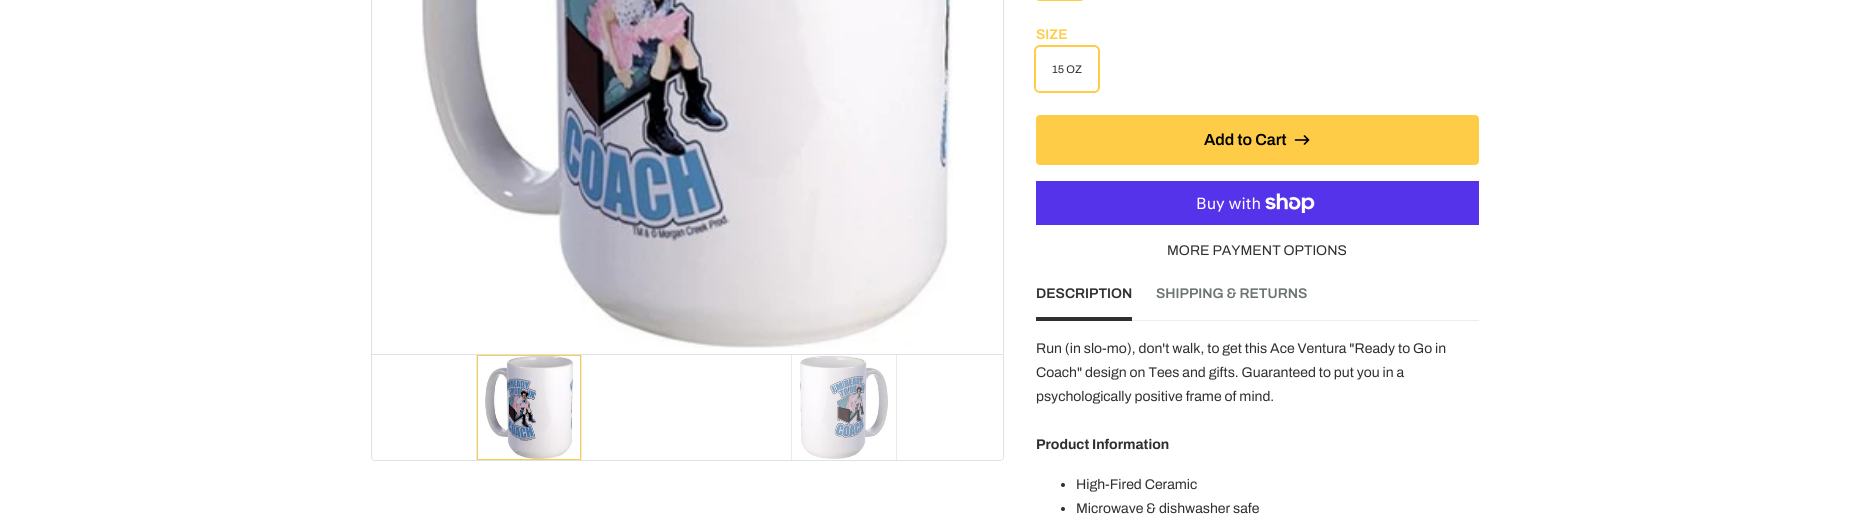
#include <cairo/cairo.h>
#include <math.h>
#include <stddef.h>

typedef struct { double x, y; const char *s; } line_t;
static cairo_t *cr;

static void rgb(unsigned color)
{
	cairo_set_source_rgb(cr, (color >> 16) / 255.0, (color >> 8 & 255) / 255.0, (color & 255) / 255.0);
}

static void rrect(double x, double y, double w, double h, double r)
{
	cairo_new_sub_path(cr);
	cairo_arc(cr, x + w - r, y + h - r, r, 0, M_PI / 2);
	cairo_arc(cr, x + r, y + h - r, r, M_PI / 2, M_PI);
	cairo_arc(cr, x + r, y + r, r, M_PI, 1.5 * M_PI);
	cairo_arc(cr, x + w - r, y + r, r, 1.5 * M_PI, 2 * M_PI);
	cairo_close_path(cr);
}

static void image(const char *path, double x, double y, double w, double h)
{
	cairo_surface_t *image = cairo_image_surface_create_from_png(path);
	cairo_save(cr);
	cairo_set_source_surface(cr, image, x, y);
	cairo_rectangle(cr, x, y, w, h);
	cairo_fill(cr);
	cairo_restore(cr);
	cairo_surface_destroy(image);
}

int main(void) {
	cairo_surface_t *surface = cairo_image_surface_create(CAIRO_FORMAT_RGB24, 1849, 530);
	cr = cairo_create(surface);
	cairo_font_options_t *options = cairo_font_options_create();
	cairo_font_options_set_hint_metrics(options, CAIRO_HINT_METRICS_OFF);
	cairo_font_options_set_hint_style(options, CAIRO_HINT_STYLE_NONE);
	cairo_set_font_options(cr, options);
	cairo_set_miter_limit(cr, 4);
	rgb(0xffffff);
	cairo_paint(cr);
	cairo_rectangle(cr, 371.5, -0.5, 632, 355);
	rgb(0xdee2e6);
	cairo_set_line_width(cr, 1);
	cairo_stroke(cr);
	image("img/1.png", 421, 0, 532, 348);
	cairo_set_fill_rule(cr, CAIRO_FILL_RULE_EVEN_ODD);
	cairo_new_path(cr);
	cairo_move_to(cr, 371, 355);
	cairo_line_to(cr, 1004, 355);
	cairo_line_to(cr, 1004, 457);
	cairo_curve_to(cr, 1004, 459, 1002, 461, 1000, 461);
	cairo_line_to(cr, 375, 461);
	cairo_curve_to(cr, 373, 461, 371, 459, 371, 457);
	cairo_close_path(cr);
	cairo_move_to(cr, 372, 355);
	cairo_line_to(cr, 1003, 355);
	cairo_line_to(cr, 1003, 457);
	cairo_curve_to(cr, 1003, 459, 1002, 460, 1000, 460);
	cairo_line_to(cr, 375, 460);
	cairo_curve_to(cr, 373, 460, 372, 459, 372, 457);
	cairo_close_path(cr);
	cairo_fill(cr);
	rgb(0xeaeaea);
	cairo_new_path(cr);
	cairo_move_to(cr, 477, 355);
	cairo_line_to(cr, 477, 460);
	cairo_line_to(cr, 476, 460);
	cairo_line_to(cr, 476, 355);
	cairo_close_path(cr);
	cairo_move_to(cr, 582, 355);
	cairo_line_to(cr, 582, 460);
	cairo_line_to(cr, 581, 460);
	cairo_line_to(cr, 581, 355);
	cairo_close_path(cr);
	cairo_fill(cr);
	image("img/2.png", 485, 356, 88, 103);
	cairo_rectangle(cr, 477.5, 355.5, 103, 104);
	rgb(0xfecc46);
	cairo_stroke(cr);
	rgb(0xeaeaea);
	cairo_new_path(cr);
	cairo_move_to(cr, 792, 355);
	cairo_line_to(cr, 792, 460);
	cairo_line_to(cr, 791, 460);
	cairo_line_to(cr, 791, 355);
	cairo_close_path(cr);
	cairo_move_to(cr, 897, 355);
	cairo_line_to(cr, 897, 460);
	cairo_line_to(cr, 896, 460);
	cairo_line_to(cr, 896, 355);
	cairo_close_path(cr);
	cairo_fill(cr);
	image("img/3.png", 800, 355, 88, 104);
	rrect(1035, -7, 50, 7, 5);
	rgb(0xfecc46);
	cairo_set_line_width(cr, 2);
	cairo_stroke(cr);
	rrect(1035, 46, 64, 46, 5);
	cairo_stroke(cr);
	rgb(0xffffff);
	rrect(1036, 47, 62, 44, 4);
	cairo_fill(cr);
	rgb(0xfecc46);
	rrect(1036.5, 115.5, 442, 49, 3.5);
	cairo_fill_preserve(cr);
	cairo_set_line_width(cr, 1);
	cairo_stroke(cr);
	image("img/4.png", 1294, 135, 16, 10);
	rgb(0x5433eb);
	cairo_rectangle(cr, 1036, 181, 443, 44);
	cairo_fill(cr);
	image("img/5.png", 1265, 193, 50, 20);
	rgb(0xecedf2);
	cairo_rectangle(cr, 1132, 320, 347, 1);
	cairo_fill(cr);
	rgb(0x303030);
	cairo_rectangle(cr, 1036, 317, 96, 4);
	cairo_fill(cr);
	cairo_arc(cr, 1063, 485, 2, 0, 2 * M_PI);
	cairo_fill(cr);
	cairo_arc(cr, 1063, 509, 2, 0, 2 * M_PI);
	cairo_fill(cr);
	cairo_select_font_face(cr, "Archivo SemiBold", CAIRO_FONT_SLANT_NORMAL, CAIRO_FONT_WEIGHT_NORMAL);
	cairo_set_font_size(cr, 14);
	rgb(0xfecc46);
	cairo_move_to(cr, 1036, 39);
	cairo_show_text(cr, "SIZE");
	cairo_select_font_face(cr, "Archivo", CAIRO_FONT_SLANT_NORMAL, CAIRO_FONT_WEIGHT_NORMAL);
	cairo_set_font_size(cr, 11);
	rgb(0x303030);
	cairo_move_to(cr, 1052, 73);
	cairo_show_text(cr, "15 OZ");
	cairo_select_font_face(cr, "Archivo SemiBold", CAIRO_FONT_SLANT_NORMAL, CAIRO_FONT_WEIGHT_NORMAL);
	cairo_set_font_size(cr, 16);
	rgb(0x000000);
	cairo_move_to(cr, 1204, 145);
	cairo_show_text(cr, "Add to Cart");
	cairo_select_font_face(cr, "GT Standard", CAIRO_FONT_SLANT_NORMAL, CAIRO_FONT_WEIGHT_NORMAL);
	rgb(0xffffff);
	cairo_move_to(cr, 1196, 209);
	cairo_show_text(cr, "Buy with");
	cairo_select_font_face(cr, "Archivo", CAIRO_FONT_SLANT_NORMAL, CAIRO_FONT_WEIGHT_NORMAL);
	cairo_set_font_size(cr, 14);
	rgb(0x303030);
	cairo_move_to(cr, 1167, 255);
	cairo_show_text(cr, "MORE PAYMENT OPTIONS");
	cairo_select_font_face(cr, "Archivo SemiBold", CAIRO_FONT_SLANT_NORMAL, CAIRO_FONT_WEIGHT_NORMAL);
	cairo_move_to(cr, 1036, 298);
	cairo_show_text(cr, "DESCRIPTION");
	rgb(0x6e7373);
	cairo_move_to(cr, 1156, 298);
	cairo_show_text(cr, "SHIPPING & RETURNS");
	cairo_select_font_face(cr, "Archivo", CAIRO_FONT_SLANT_NORMAL, CAIRO_FONT_WEIGHT_NORMAL);
	rgb(0x303030);
	{
		static const line_t items[] = {
			{1036, 353, "Run (in slo-mo), don't walk, to get this Ace Ventura \"Ready to Go in"},
			{1036, 377, "Coach\" design on Tees and gifts. Guaranteed to put you in a"},
			{1036, 401, "psychologically positive frame of mind."},
		};
		for (size_t i = 0; i < sizeof items / sizeof *items; i++) {
			cairo_move_to(cr, items[i].x, items[i].y);
			cairo_show_text(cr, items[i].s);
		}
	}
	cairo_select_font_face(cr, "Archivo", CAIRO_FONT_SLANT_NORMAL, CAIRO_FONT_WEIGHT_BOLD);
	cairo_move_to(cr, 1036, 449);
	cairo_show_text(cr, "Product Information");
	cairo_select_font_face(cr, "Archivo", CAIRO_FONT_SLANT_NORMAL, CAIRO_FONT_WEIGHT_NORMAL);
	cairo_move_to(cr, 1076, 489);
	cairo_show_text(cr, "High-Fired Ceramic");
	cairo_move_to(cr, 1076, 513);
	cairo_show_text(cr, "Microwave & dishwasher safe");
	cairo_surface_write_to_png(surface, "page.png");
	cairo_font_options_destroy(options);
	cairo_destroy(cr);
	cairo_surface_destroy(surface);
	return 0;
}
